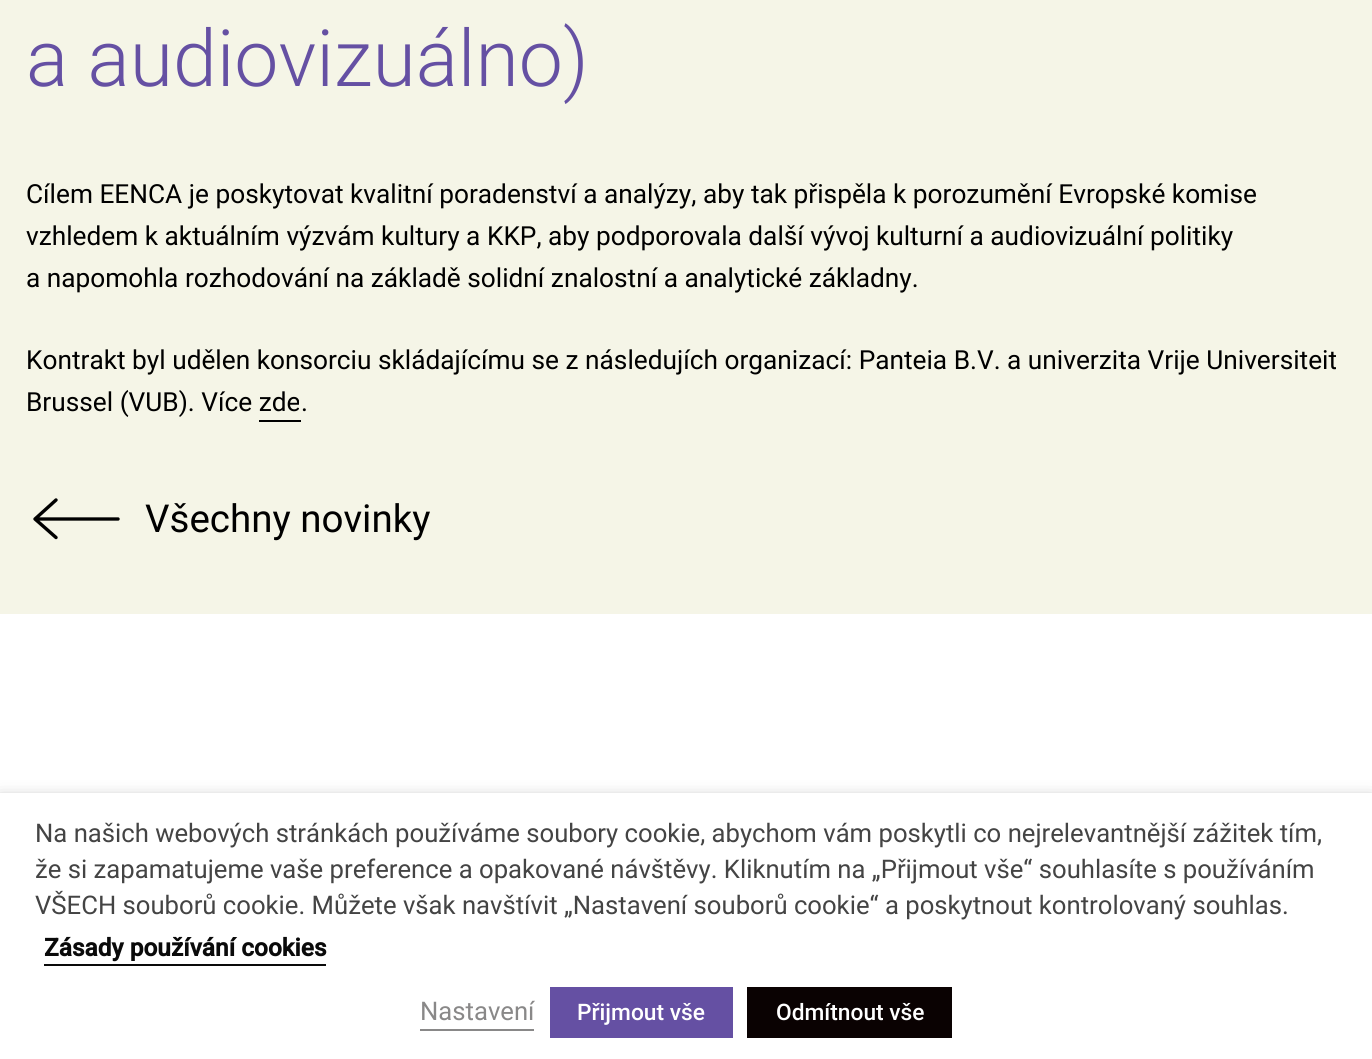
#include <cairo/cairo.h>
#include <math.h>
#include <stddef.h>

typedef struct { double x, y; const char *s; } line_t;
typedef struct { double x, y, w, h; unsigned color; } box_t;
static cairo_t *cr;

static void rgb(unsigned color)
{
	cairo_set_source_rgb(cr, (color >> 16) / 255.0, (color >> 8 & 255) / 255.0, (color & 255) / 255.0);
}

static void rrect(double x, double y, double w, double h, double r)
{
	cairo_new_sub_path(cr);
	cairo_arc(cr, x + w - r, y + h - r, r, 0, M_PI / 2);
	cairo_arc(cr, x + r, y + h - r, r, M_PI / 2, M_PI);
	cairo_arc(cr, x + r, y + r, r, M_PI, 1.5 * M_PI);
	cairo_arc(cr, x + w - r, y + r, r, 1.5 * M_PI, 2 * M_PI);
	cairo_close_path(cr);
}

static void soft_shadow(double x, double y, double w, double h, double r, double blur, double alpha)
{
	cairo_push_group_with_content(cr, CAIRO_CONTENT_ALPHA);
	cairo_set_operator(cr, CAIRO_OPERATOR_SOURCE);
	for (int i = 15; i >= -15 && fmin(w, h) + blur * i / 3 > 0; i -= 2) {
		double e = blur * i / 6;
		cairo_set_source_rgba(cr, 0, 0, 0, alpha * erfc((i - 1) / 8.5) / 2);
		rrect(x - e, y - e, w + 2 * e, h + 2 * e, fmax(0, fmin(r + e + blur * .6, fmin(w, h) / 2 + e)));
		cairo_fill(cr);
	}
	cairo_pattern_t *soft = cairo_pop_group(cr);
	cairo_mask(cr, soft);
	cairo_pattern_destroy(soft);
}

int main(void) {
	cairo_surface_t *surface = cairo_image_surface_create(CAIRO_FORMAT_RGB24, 1372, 1059);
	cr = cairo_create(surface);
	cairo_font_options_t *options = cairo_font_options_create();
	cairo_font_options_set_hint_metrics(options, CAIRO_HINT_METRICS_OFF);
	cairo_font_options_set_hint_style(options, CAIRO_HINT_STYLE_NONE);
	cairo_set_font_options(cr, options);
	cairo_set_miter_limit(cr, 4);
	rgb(0xf5f5e7);
	cairo_paint(cr);
	rgb(0x000000);
	cairo_rectangle(cr, 259, 420, 42, 2);
	cairo_fill(cr);
	cairo_new_path(cr);
	cairo_move_to(cr, 35, 519);
	cairo_line_to(cr, 118, 519);
	cairo_move_to(cr, 56, 537.5);
	cairo_line_to(cr, 35, 519);
	cairo_line_to(cr, 56, 500);
	cairo_set_line_width(cr, 3.4);
	cairo_set_line_cap(cr, CAIRO_LINE_CAP_ROUND);
	cairo_set_line_join(cr, CAIRO_LINE_JOIN_ROUND);
	cairo_stroke(cr);
	rgb(0xffffff);
	cairo_rectangle(cr, 0, 614, 1372, 179);
	cairo_fill(cr);
	rgb(0x000000);
	soft_shadow(0, 802, 1372, 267, 0, 9, 0.5);
	{
		static const box_t items[] = {
			{0, 793, 1372, 266, 0xffffff},
			{44, 964, 282, 2, 0x0a0a0a},
			{420, 1029, 114, 2, 0x898888},
			{550, 987, 183, 51, 0x6550a3},
			{747, 987, 205, 51, 0x0a0202},
		};
		for (size_t i = 0; i < sizeof items / sizeof *items; i++) {
			rgb(items[i].color);
			cairo_rectangle(cr, items[i].x, items[i].y, items[i].w, items[i].h);
			cairo_fill(cr);
		}
	}
	cairo_select_font_face(cr, "Roboto Light", CAIRO_FONT_SLANT_NORMAL, CAIRO_FONT_WEIGHT_NORMAL);
	cairo_set_font_size(cr, 78.75);
	rgb(0x6550a3);
	cairo_move_to(cr, 26, 86);
	cairo_show_text(cr, "a audiovizuálno)");
	cairo_select_font_face(cr, "Roboto", CAIRO_FONT_SLANT_NORMAL, CAIRO_FONT_WEIGHT_NORMAL);
	cairo_set_font_size(cr, 26.25);
	rgb(0x000000);
	{
		static const line_t items[] = {
			{26, 203, "Cílem EENCA je poskytovat kvalitní poradenství a analýzy, aby tak přispěla k porozumění Evropské komise"},
			{26, 245, "vzhledem k aktuálním výzvám kultury a KKP, aby podporovala další vývoj kulturní a audiovizuální politiky"},
			{26, 287, "a napomohla rozhodování na základě solidní znalostní a analytické základny."},
			{26, 369, "Kontrakt byl udělen konsorciu skládajícímu se z následujích organizací: Panteia B.V. a univerzita Vrije Universiteit"},
			{26, 411, "Brussel (VUB). Více zde"},
			{301, 411, "."},
		};
		for (size_t i = 0; i < sizeof items / sizeof *items; i++) {
			cairo_move_to(cr, items[i].x, items[i].y);
			cairo_show_text(cr, items[i].s);
		}
	}
	cairo_set_font_size(cr, 38.5);
	cairo_move_to(cr, 145, 532);
	cairo_show_text(cr, "Všechny novinky");
	cairo_set_font_size(cr, 25.67);
	rgb(0x444444);
	{
		static const line_t items[] = {
			{35, 842, "Na našich webových stránkách používáme soubory cookie, abychom vám poskytli co nejrelevantnější zážitek tím,"},
			{35, 878, "že si zapamatujeme vaše preference a opakované návštěvy. Kliknutím na „Přijmout vše“ souhlasíte s používáním"},
			{35, 914, "VŠECH souborů cookie. Můžete však navštívit „Nastavení souborů cookie“ a poskytnout kontrolovaný souhlas."},
		};
		for (size_t i = 0; i < sizeof items / sizeof *items; i++) {
			cairo_move_to(cr, items[i].x, items[i].y);
			cairo_show_text(cr, items[i].s);
		}
	}
	cairo_select_font_face(cr, "Roboto", CAIRO_FONT_SLANT_NORMAL, CAIRO_FONT_WEIGHT_BOLD);
	cairo_set_font_size(cr, 24.5);
	rgb(0x0a0a0a);
	cairo_move_to(cr, 44, 956);
	cairo_show_text(cr, "Zásady používání cookies");
	cairo_select_font_face(cr, "Roboto", CAIRO_FONT_SLANT_NORMAL, CAIRO_FONT_WEIGHT_NORMAL);
	cairo_set_font_size(cr, 25.67);
	rgb(0x898888);
	cairo_move_to(cr, 420, 1020);
	cairo_show_text(cr, "Nastavení");
	cairo_select_font_face(cr, "Roboto Medium", CAIRO_FONT_SLANT_NORMAL, CAIRO_FONT_WEIGHT_NORMAL);
	cairo_set_font_size(cr, 22.75);
	rgb(0xffffff);
	cairo_move_to(cr, 577, 1020);
	cairo_show_text(cr, "Přijmout vše");
	cairo_move_to(cr, 776, 1020);
	cairo_show_text(cr, "Odmítnout vše");
	cairo_surface_write_to_png(surface, "page.png");
	cairo_font_options_destroy(options);
	cairo_destroy(cr);
	cairo_surface_destroy(surface);
	return 0;
}
